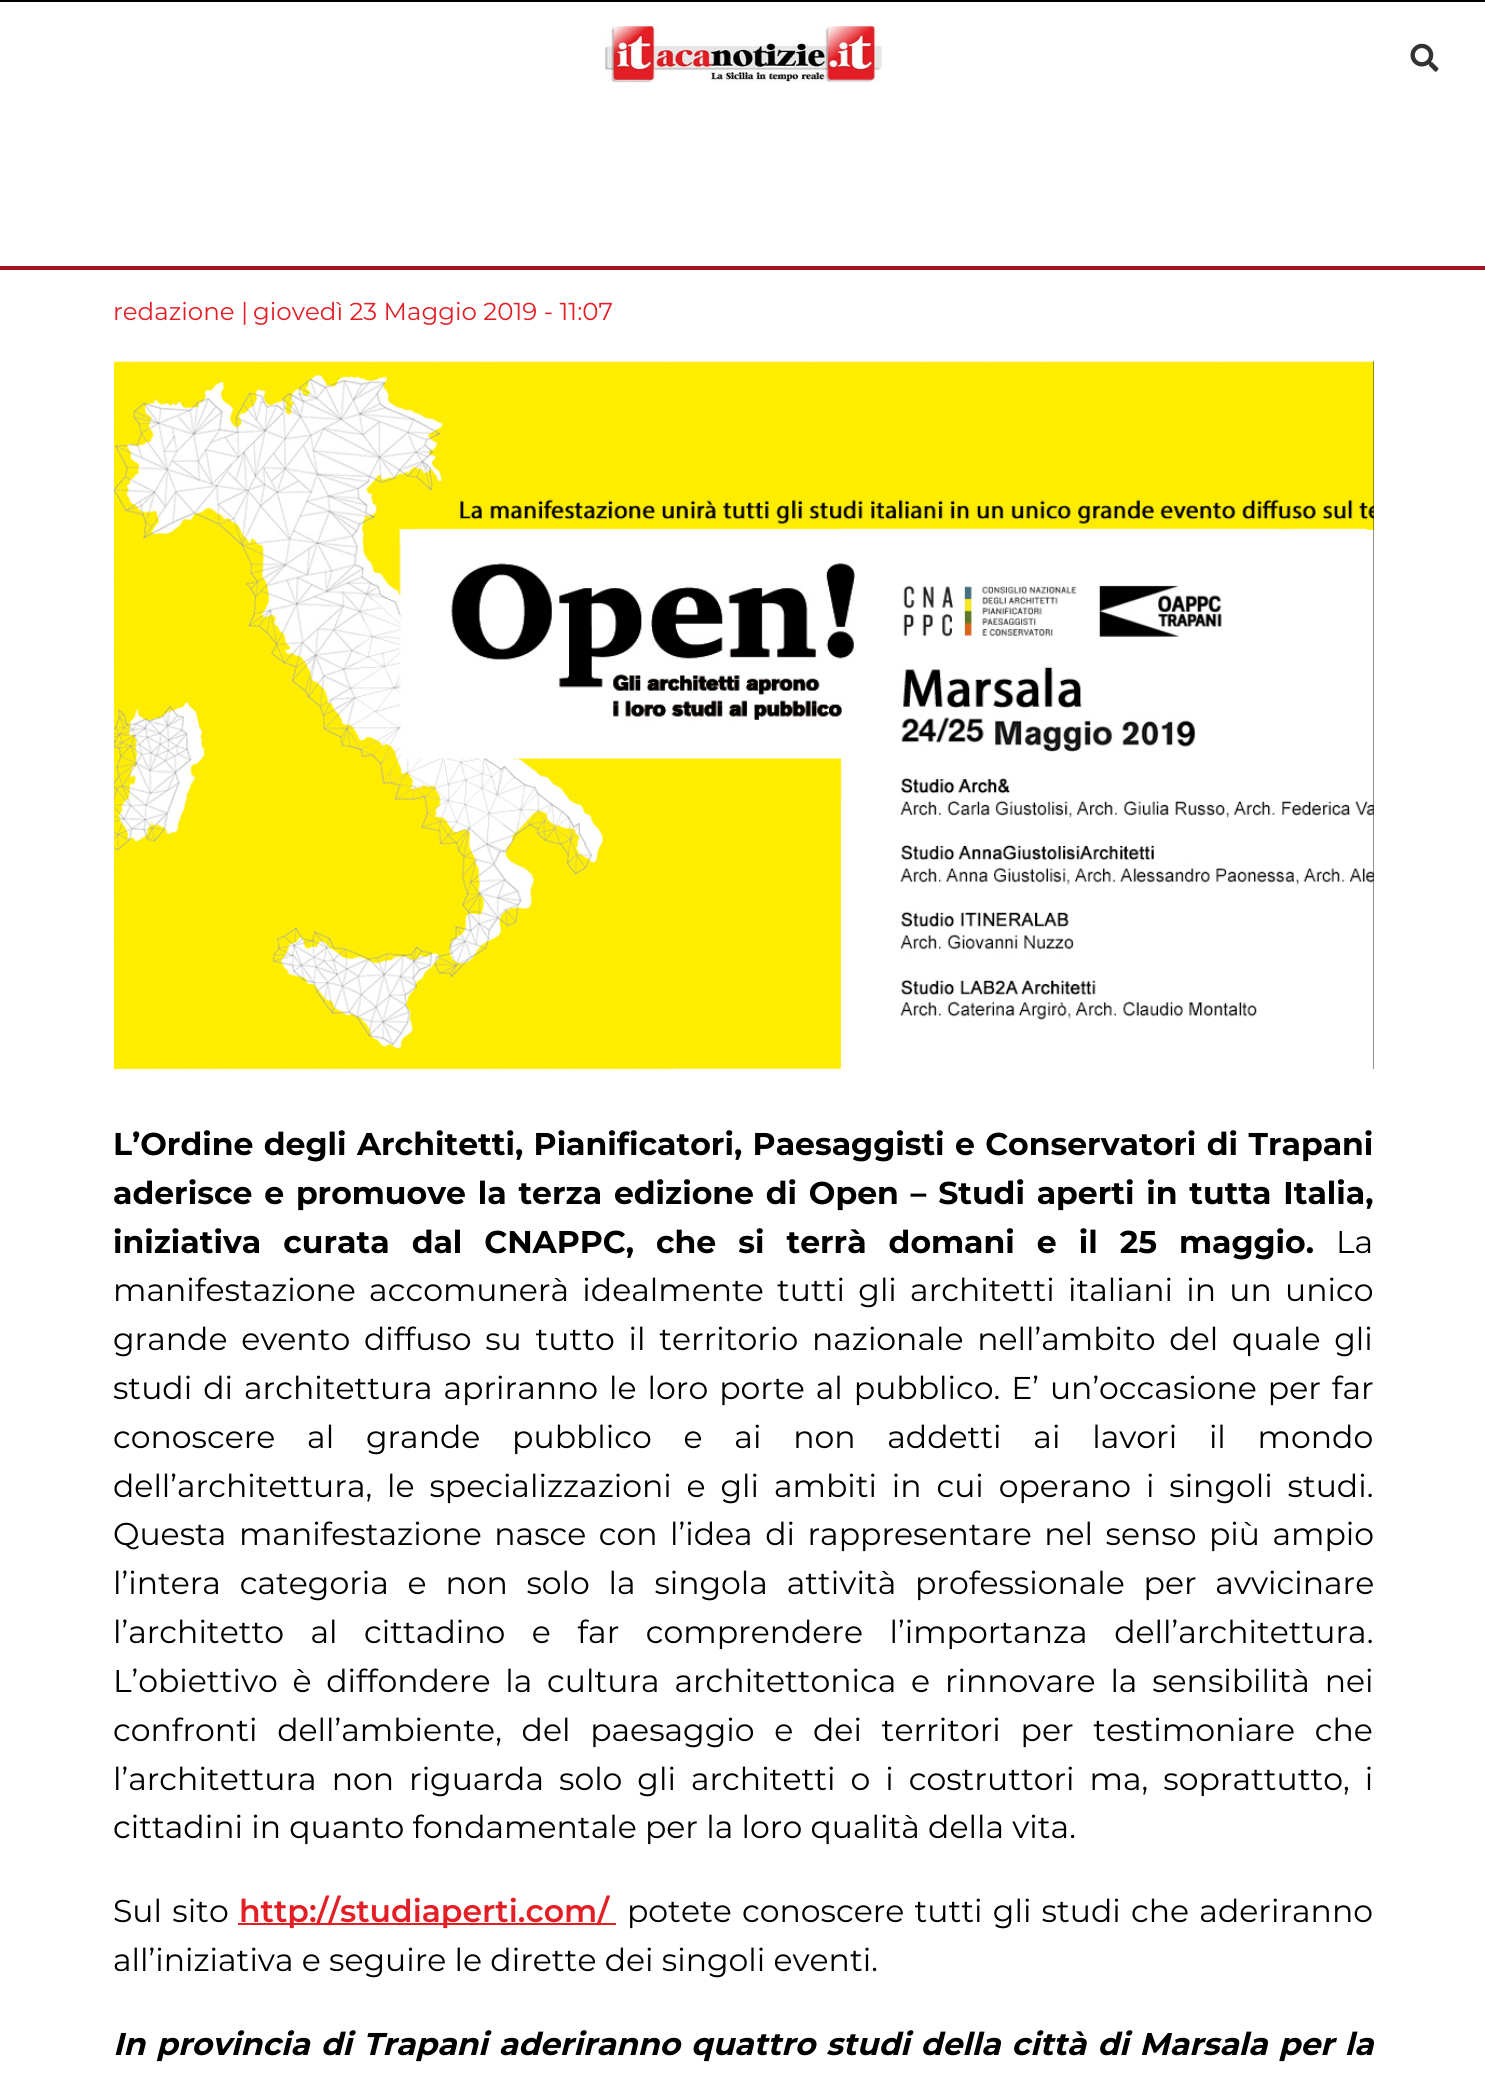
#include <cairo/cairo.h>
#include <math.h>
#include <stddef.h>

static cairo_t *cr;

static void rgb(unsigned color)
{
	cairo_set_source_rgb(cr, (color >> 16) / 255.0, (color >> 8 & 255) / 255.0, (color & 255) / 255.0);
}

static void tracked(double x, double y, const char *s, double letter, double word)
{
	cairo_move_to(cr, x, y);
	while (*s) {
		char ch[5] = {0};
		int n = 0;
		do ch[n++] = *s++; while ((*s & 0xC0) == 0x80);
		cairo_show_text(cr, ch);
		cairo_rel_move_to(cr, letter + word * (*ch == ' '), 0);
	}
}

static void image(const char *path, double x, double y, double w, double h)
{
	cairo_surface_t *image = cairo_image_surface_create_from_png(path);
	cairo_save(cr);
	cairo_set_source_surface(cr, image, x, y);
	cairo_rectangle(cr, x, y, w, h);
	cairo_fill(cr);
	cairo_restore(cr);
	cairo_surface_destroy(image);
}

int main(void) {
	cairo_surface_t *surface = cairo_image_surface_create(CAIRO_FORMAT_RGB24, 1485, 2080);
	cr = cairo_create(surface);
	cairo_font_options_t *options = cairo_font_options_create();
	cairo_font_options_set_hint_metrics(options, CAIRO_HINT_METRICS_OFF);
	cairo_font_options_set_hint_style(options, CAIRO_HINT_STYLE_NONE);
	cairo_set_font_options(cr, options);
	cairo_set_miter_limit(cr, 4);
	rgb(0xffffff);
	cairo_paint(cr);
	rgb(0x000000);
	cairo_rectangle(cr, 0, 0, 1485, 2);
	cairo_fill(cr);
	rgb(0xa5141c);
	cairo_rectangle(cr, 0, 266, 1485, 4);
	cairo_fill(cr);
	image("img/1.png", 604, 26, 279, 57);
	image("img/2.png", 1410, 43, 29, 29);
	rgb(0x000000);
	cairo_rectangle(cr, 1373, 361, 1, 708);
	cairo_fill(cr);
	image("img/3.png", 113, 361, 1261, 709);
	rgb(0xe31e25);
	cairo_rectangle(cr, 238, 1923, 378, 2);
	cairo_fill(cr);
	cairo_select_font_face(cr, "Montserrat", CAIRO_FONT_SLANT_NORMAL, CAIRO_FONT_WEIGHT_NORMAL);
	cairo_set_font_size(cr, 24.5);
	cairo_move_to(cr, 113, 320);
	cairo_show_text(cr, "redazione |");
	cairo_move_to(cr, 253, 320);
	cairo_show_text(cr, "giovedì 23 Maggio 2019 - 11:07");
	cairo_select_font_face(cr, "Montserrat", CAIRO_FONT_SLANT_NORMAL, CAIRO_FONT_WEIGHT_BOLD);
	cairo_set_font_size(cr, 31.5);
	rgb(0x000000);
	tracked(113, 1155, "L’Ordine degli Architetti, Pianificatori, Paesaggisti e Conservatori di Trapani", 0, 1.5);
	tracked(113, 1204, "aderisce e promuove la terza edizione di Open – Studi aperti in tutta Italia,", 0, 2.9);
	tracked(113, 1253, "iniziativa curata dal CNAPPC, che si terrà domani e il 25 maggio.", 0, 13.1);
	cairo_select_font_face(cr, "Montserrat", CAIRO_FONT_SLANT_NORMAL, CAIRO_FONT_WEIGHT_NORMAL);
	cairo_move_to(cr, 1336, 1253);
	cairo_show_text(cr, "La");
	tracked(113, 1301, "manifestazione accomunerà idealmente tutti gli architetti italiani in un unico", 0, 5);
	tracked(113, 1350, "grande evento diffuso su tutto il territorio nazionale nell’ambito del quale gli", 0, 5.5);
	tracked(113, 1399, "studi di architettura apriranno le loro porte al pubblico. E’ un’occasione per far", 0, 2.75);
	tracked(113, 1448, "conoscere al grande pubblico e ai non addetti ai lavori il mondo", 0, 23.5);
	tracked(113, 1497, "dell’architettura, le specializzazioni e gli ambiti in cui operano i singoli studi.", 0, 6.6);
	tracked(113, 1545, "Questa manifestazione nasce con l’idea di rappresentare nel senso più ampio", 0, 4.25);
	tracked(113, 1594, "l’intera categoria e non solo la singola attività professionale per avvicinare", 0, 10.5);
	tracked(113, 1643, "l’architetto al cittadino e far comprendere l’importanza dell’architettura.", 0, 18.25);
	tracked(113, 1692, "L’obiettivo è diffondere la cultura architettonica e rinnovare la sensibilità nei", 0, 6.5);
	tracked(113, 1741, "confronti dell’ambiente, del paesaggio e dei territori per testimoniare che", 0, 11.5);
	tracked(113, 1790, "l’architettura non riguarda solo gli architetti o i costruttori ma, soprattutto, i", 0, 6.75);
	cairo_move_to(cr, 113, 1838);
	cairo_show_text(cr, "cittadini in quanto fondamentale per la loro qualità della vita.");
	tracked(113, 1922, "Sul sito", 0, 2);
	cairo_select_font_face(cr, "Montserrat SemiBold", CAIRO_FONT_SLANT_NORMAL, CAIRO_FONT_WEIGHT_NORMAL);
	rgb(0xe31e25);
	cairo_move_to(cr, 239, 1922);
	cairo_show_text(cr, "http://studiaperti.com/");
	cairo_select_font_face(cr, "Montserrat", CAIRO_FONT_SLANT_NORMAL, CAIRO_FONT_WEIGHT_NORMAL);
	rgb(0x000000);
	tracked(627, 1922, "potete conoscere tutti gli studi che aderiranno", 0, 2);
	cairo_move_to(cr, 113, 1971);
	cairo_show_text(cr, "all’iniziativa e seguire le dirette dei singoli eventi.");
	cairo_select_font_face(cr, "Montserrat", CAIRO_FONT_SLANT_ITALIC, CAIRO_FONT_WEIGHT_BOLD);
	tracked(113, 2055, "In provincia di Trapani aderiranno quattro studi della città di Marsala per la", 0, 2);
	cairo_surface_write_to_png(surface, "page.png");
	cairo_font_options_destroy(options);
	cairo_destroy(cr);
	cairo_surface_destroy(surface);
	return 0;
}
